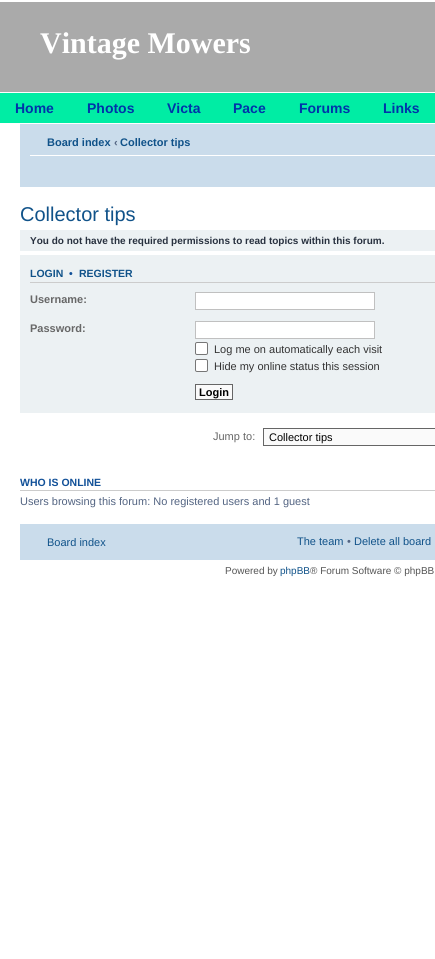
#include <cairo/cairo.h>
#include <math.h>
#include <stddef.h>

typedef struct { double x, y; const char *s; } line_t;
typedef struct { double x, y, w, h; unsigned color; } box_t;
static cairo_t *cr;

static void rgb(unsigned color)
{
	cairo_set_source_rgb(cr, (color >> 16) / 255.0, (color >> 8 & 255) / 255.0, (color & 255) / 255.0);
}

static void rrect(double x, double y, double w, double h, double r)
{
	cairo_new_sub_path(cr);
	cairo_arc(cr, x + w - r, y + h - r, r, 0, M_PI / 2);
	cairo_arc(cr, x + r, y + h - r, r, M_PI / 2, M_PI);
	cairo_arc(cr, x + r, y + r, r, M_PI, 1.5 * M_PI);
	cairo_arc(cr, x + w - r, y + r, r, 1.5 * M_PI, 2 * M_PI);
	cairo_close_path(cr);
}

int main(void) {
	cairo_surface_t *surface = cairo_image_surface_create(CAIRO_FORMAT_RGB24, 435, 959);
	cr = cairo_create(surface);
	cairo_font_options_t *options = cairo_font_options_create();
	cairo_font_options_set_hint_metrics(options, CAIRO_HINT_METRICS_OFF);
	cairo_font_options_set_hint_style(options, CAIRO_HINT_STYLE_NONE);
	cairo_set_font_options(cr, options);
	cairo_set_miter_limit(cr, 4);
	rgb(0xffffff);
	cairo_paint(cr);
	{
		static const box_t items[] = {
			{0, 2, 435, 90, 0xaaaaaa},
			{0, 93, 435, 30, 0x00eda4},
			{20, 124, 415, 63, 0xcadceb},
			{30, 155, 405, 1, 0xffffff},
			{20, 230, 415, 21, 0xecf1f3},
			{20, 255, 415, 158, 0xecf1f3},
			{30, 282, 405, 1, 0xcccccc},
		};
		for (size_t i = 0; i < sizeof items / sizeof *items; i++) {
			rgb(items[i].color);
			cairo_rectangle(cr, items[i].x, items[i].y, items[i].w, items[i].h);
			cairo_fill(cr);
		}
	}
	rgb(0xffffff);
	cairo_rectangle(cr, 195.5, 292.5, 179, 17);
	cairo_fill_preserve(cr);
	rgb(0xc0c0c0);
	cairo_set_line_width(cr, 1);
	cairo_stroke(cr);
	rgb(0xffffff);
	cairo_rectangle(cr, 195.5, 321.5, 179, 17);
	cairo_fill_preserve(cr);
	rgb(0xc0c0c0);
	cairo_stroke(cr);
	rgb(0xffffff);
	rrect(195.5, 342.5, 12, 12, 1.5);
	cairo_fill_preserve(cr);
	rgb(0x767676);
	cairo_stroke(cr);
	rgb(0xffffff);
	rrect(195.5, 359.5, 12, 12, 1.5);
	cairo_fill_preserve(cr);
	rgb(0x767676);
	cairo_stroke(cr);
	rgb(0xfafafa);
	cairo_rectangle(cr, 195.5, 384.5, 37, 15);
	cairo_fill_preserve(cr);
	rgb(0x666666);
	cairo_stroke(cr);
	rgb(0xfafafa);
	cairo_rectangle(cr, 263.5, 428.5, 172, 17);
	cairo_fill_preserve(cr);
	rgb(0x666666);
	cairo_stroke(cr);
	rgb(0xcccccc);
	cairo_rectangle(cr, 20, 490, 415, 1);
	cairo_fill(cr);
	rgb(0xcadceb);
	cairo_rectangle(cr, 20, 524, 415, 36);
	cairo_fill(cr);
	cairo_select_font_face(cr, "Liberation Serif", CAIRO_FONT_SLANT_NORMAL, CAIRO_FONT_WEIGHT_BOLD);
	cairo_set_font_size(cr, 30);
	rgb(0xffffff);
	cairo_move_to(cr, 40, 53);
	cairo_show_text(cr, "Vintage Mowers");
	cairo_select_font_face(cr, "Liberation Sans", CAIRO_FONT_SLANT_NORMAL, CAIRO_FONT_WEIGHT_BOLD);
	cairo_set_font_size(cr, 14);
	rgb(0x0033aa);
	{
		static const line_t items[] = {
			{15, 113, "Home"},
			{87, 113, "Photos"},
			{167, 113, "Victa"},
			{233, 113, "Pace"},
			{299, 113, "Forums"},
			{383, 113, "Links"},
		};
		for (size_t i = 0; i < sizeof items / sizeof *items; i++) {
			cairo_move_to(cr, items[i].x, items[i].y);
			cairo_show_text(cr, items[i].s);
		}
	}
	cairo_set_font_size(cr, 11);
	rgb(0x105289);
	cairo_move_to(cr, 47, 146);
	cairo_show_text(cr, "Board index");
	rgb(0x536482);
	cairo_move_to(cr, 114, 146);
	cairo_show_text(cr, "‹");
	rgb(0x105289);
	cairo_move_to(cr, 120, 146);
	cairo_show_text(cr, "Collector tips");
	cairo_select_font_face(cr, "Liberation Sans", CAIRO_FONT_SLANT_NORMAL, CAIRO_FONT_WEIGHT_NORMAL);
	cairo_set_font_size(cr, 20);
	cairo_move_to(cr, 20, 221);
	cairo_show_text(cr, "Collector tips");
	cairo_select_font_face(cr, "Liberation Sans", CAIRO_FONT_SLANT_NORMAL, CAIRO_FONT_WEIGHT_BOLD);
	cairo_set_font_size(cr, 10);
	rgb(0x28313f);
	cairo_move_to(cr, 30, 244);
	cairo_show_text(cr, "You do not have the required permissions to read topics within this forum.");
	cairo_set_font_size(cr, 10.5);
	rgb(0x105289);
	cairo_move_to(cr, 30, 277);
	cairo_show_text(cr, "LOGIN");
	rgb(0x115098);
	cairo_move_to(cr, 69, 277);
	cairo_show_text(cr, "•");
	rgb(0x105289);
	cairo_move_to(cr, 79, 277);
	cairo_show_text(cr, "REGISTER");
	cairo_set_font_size(cr, 11);
	rgb(0x676767);
	cairo_move_to(cr, 30, 303);
	cairo_show_text(cr, "Username:");
	cairo_move_to(cr, 30, 332);
	cairo_show_text(cr, "Password:");
	cairo_select_font_face(cr, "Liberation Sans", CAIRO_FONT_SLANT_NORMAL, CAIRO_FONT_WEIGHT_NORMAL);
	rgb(0x333333);
	cairo_move_to(cr, 214, 353);
	cairo_show_text(cr, "Log me on automatically each visit");
	cairo_move_to(cr, 214, 370);
	cairo_show_text(cr, "Hide my online status this session");
	cairo_select_font_face(cr, "Liberation Sans", CAIRO_FONT_SLANT_NORMAL, CAIRO_FONT_WEIGHT_BOLD);
	rgb(0x000000);
	cairo_move_to(cr, 199, 396);
	cairo_show_text(cr, "Login");
	cairo_select_font_face(cr, "Liberation Sans", CAIRO_FONT_SLANT_NORMAL, CAIRO_FONT_WEIGHT_NORMAL);
	rgb(0x676767);
	cairo_move_to(cr, 213, 440);
	cairo_show_text(cr, "Jump to:");
	rgb(0x000000);
	cairo_move_to(cr, 269, 441);
	cairo_show_text(cr, "Collector tips");
	cairo_select_font_face(cr, "Liberation Sans", CAIRO_FONT_SLANT_NORMAL, CAIRO_FONT_WEIGHT_BOLD);
	cairo_set_font_size(cr, 10.5);
	rgb(0x115098);
	cairo_move_to(cr, 20, 486);
	cairo_show_text(cr, "WHO IS ONLINE");
	cairo_select_font_face(cr, "Liberation Sans", CAIRO_FONT_SLANT_NORMAL, CAIRO_FONT_WEIGHT_NORMAL);
	cairo_set_font_size(cr, 11);
	rgb(0x536482);
	cairo_move_to(cr, 20, 505);
	cairo_show_text(cr, "Users browsing this forum: No registered users and 1 guest");
	rgb(0x105289);
	cairo_move_to(cr, 47, 546);
	cairo_show_text(cr, "Board index");
	cairo_move_to(cr, 297, 545);
	cairo_show_text(cr, "The team");
	rgb(0x536482);
	cairo_move_to(cr, 347, 545);
	cairo_show_text(cr, "•");
	rgb(0x105289);
	cairo_move_to(cr, 354, 545);
	cairo_show_text(cr, "Delete all board");
	cairo_set_font_size(cr, 10);
	rgb(0x555555);
	cairo_move_to(cr, 225, 574);
	cairo_show_text(cr, "Powered by");
	rgb(0x105289);
	cairo_move_to(cr, 280, 574);
	cairo_show_text(cr, "phpBB");
	rgb(0x555555);
	cairo_move_to(cr, 310, 574);
	cairo_show_text(cr, "® Forum Software © phpBB");
	cairo_surface_write_to_png(surface, "page.png");
	cairo_font_options_destroy(options);
	cairo_destroy(cr);
	cairo_surface_destroy(surface);
	return 0;
}
